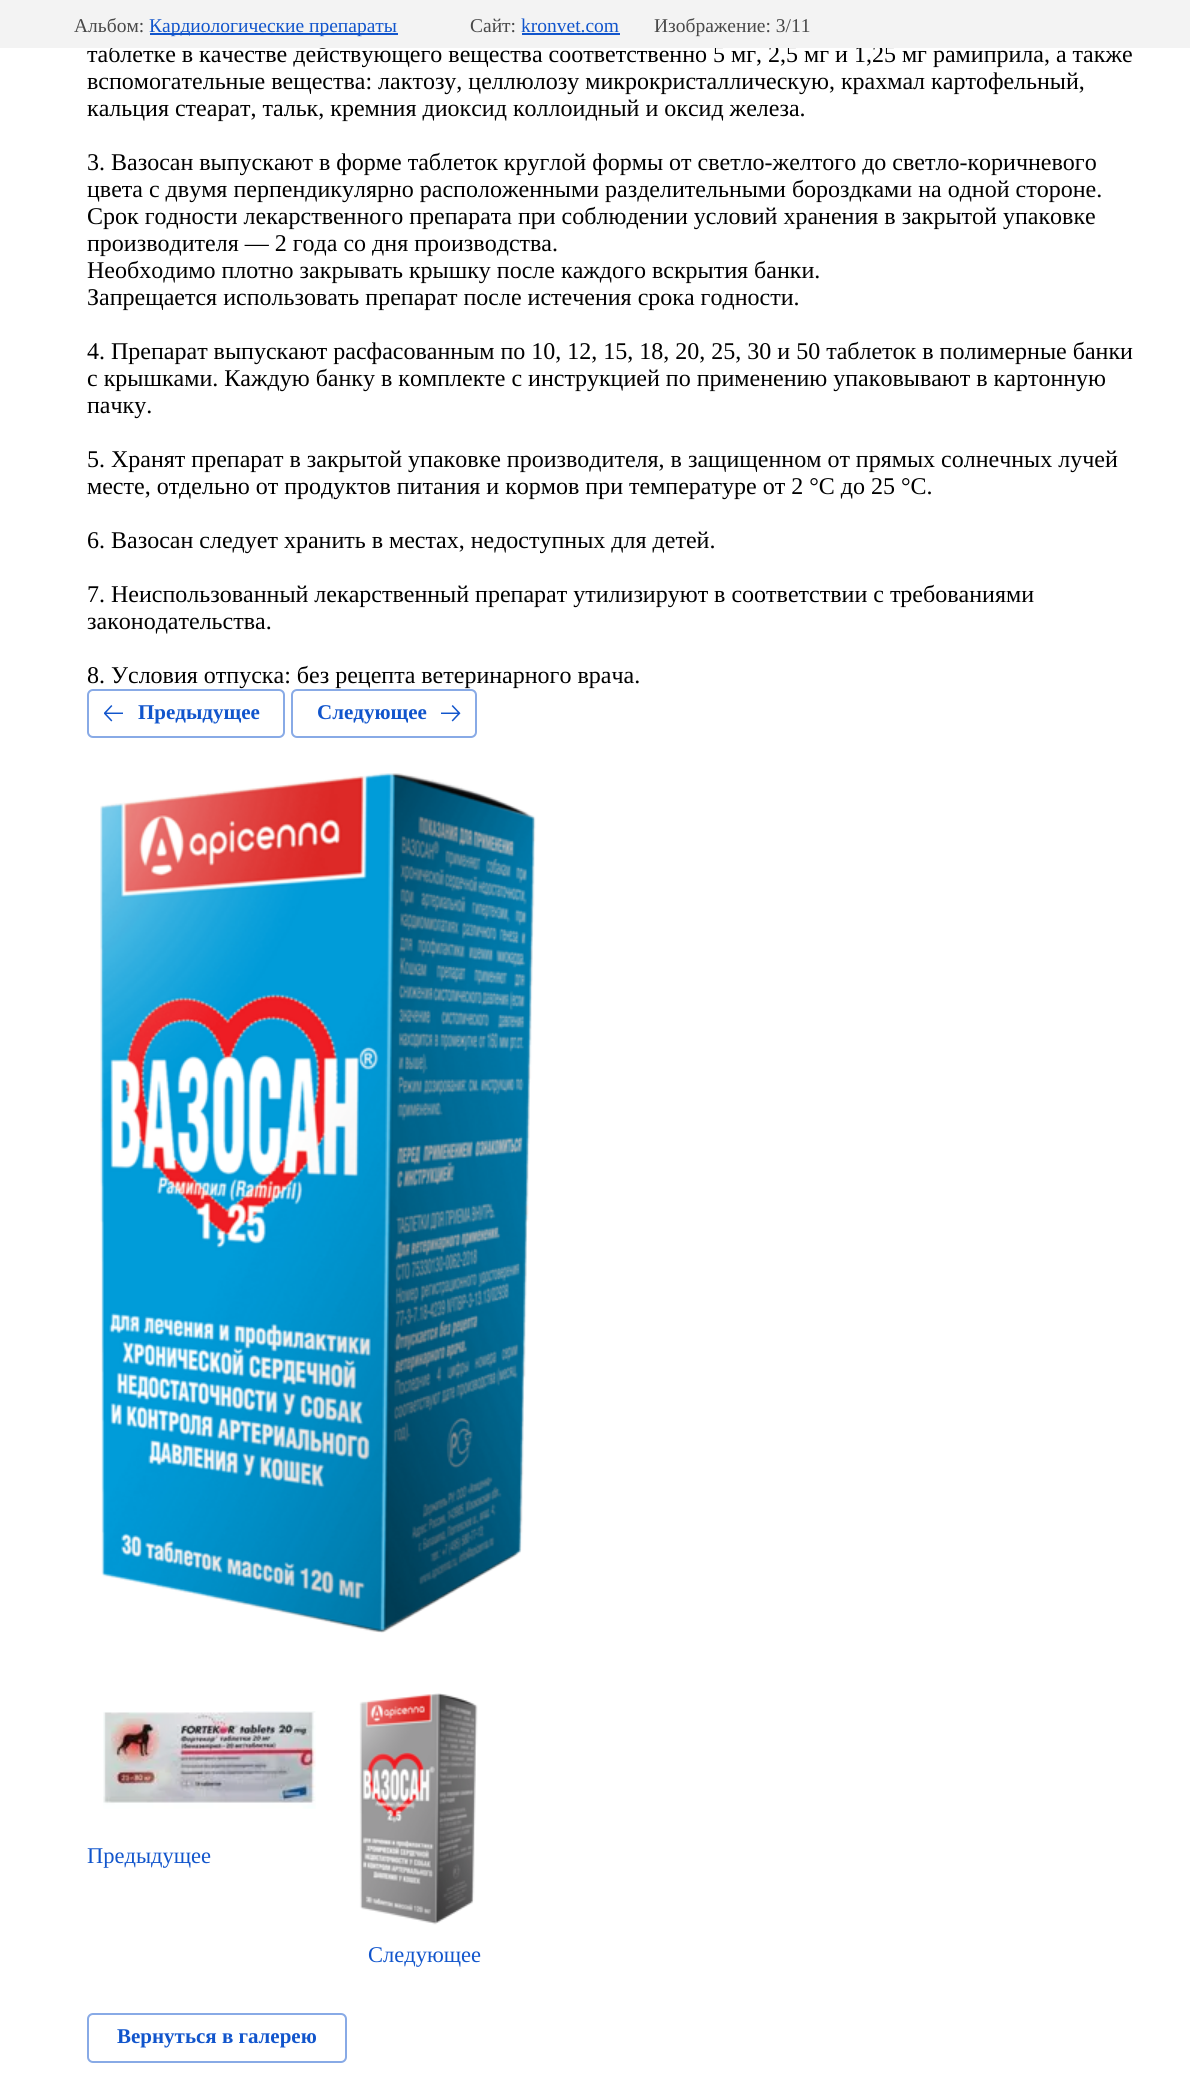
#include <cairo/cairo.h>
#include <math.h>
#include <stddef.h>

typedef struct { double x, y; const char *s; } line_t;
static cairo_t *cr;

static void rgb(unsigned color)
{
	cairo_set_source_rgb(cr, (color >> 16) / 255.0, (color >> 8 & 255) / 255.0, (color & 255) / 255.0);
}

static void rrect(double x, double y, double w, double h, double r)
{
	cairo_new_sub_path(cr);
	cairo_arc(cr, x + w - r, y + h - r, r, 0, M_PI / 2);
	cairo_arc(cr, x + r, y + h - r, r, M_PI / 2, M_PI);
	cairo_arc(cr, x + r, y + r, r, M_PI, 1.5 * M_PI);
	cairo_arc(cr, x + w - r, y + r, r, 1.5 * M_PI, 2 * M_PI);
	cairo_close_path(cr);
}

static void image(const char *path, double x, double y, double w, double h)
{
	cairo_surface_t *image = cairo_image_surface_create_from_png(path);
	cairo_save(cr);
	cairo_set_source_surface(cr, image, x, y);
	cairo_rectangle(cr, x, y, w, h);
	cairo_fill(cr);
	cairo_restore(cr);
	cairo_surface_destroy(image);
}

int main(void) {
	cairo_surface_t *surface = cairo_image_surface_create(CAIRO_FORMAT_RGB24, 1190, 2092);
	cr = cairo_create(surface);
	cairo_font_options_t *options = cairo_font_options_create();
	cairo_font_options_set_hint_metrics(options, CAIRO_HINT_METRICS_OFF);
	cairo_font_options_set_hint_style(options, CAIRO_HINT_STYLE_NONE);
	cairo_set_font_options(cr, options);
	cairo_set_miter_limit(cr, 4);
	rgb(0xffffff);
	cairo_paint(cr);
	rrect(88, 690, 196, 47, 5);
	rgb(0x88aae6);
	cairo_stroke(cr);
	image("img/1.png", 104, 705, 19, 17);
	rrect(292, 690, 184, 47, 5);
	cairo_stroke(cr);
	image("img/2.png", 441, 705, 20, 17);
	image("img/3.png", 100, 773, 436, 860);
	image("img/4.png", 103, 1711, 213, 98);
	image("img/5.png", 359, 1693, 119, 232);
	rrect(88, 2014, 258, 48, 5);
	cairo_stroke(cr);
	cairo_select_font_face(cr, "Liberation Serif", CAIRO_FONT_SLANT_NORMAL, CAIRO_FONT_WEIGHT_NORMAL);
	cairo_set_font_size(cr, 24);
	rgb(0x000000);
	cairo_move_to(cr, 87, 62);
	cairo_show_text(cr, "таблетке в качестве действующего вещества соответственно 5 мг, 2,5 мг и 1,25 мг рамиприла, а также");
	rgb(0xf3f3f3);
	cairo_rectangle(cr, 0, 0, 1190, 48);
	cairo_fill(cr);
	cairo_set_font_size(cr, 19.5);
	rgb(0x484848);
	cairo_move_to(cr, 654, 32);
	cairo_show_text(cr, "Изображение: 3/11");
	rgb(0x1155cc);
	cairo_move_to(cr, 521, 32);
	cairo_show_text(cr, "kronvet.com");
	cairo_rectangle(cr, 522, 33, 98, 2);
	cairo_fill(cr);
	rgb(0x484848);
	cairo_move_to(cr, 470, 32);
	cairo_show_text(cr, "Сайт:");
	rgb(0x1155cc);
	cairo_rectangle(cr, 150, 33, 248, 2);
	cairo_fill(cr);
	cairo_move_to(cr, 149, 32);
	cairo_show_text(cr, "Кардиологические препараты");
	rgb(0x484848);
	cairo_move_to(cr, 74, 32);
	cairo_show_text(cr, "Альбом:");
	cairo_set_font_size(cr, 24);
	rgb(0x000000);
	{
		static const line_t items[] = {
			{87, 89, "вспомогательные вещества: лактозу, целлюлозу микрокристаллическую, крахмал картофельный,"},
			{87, 116, "кальция стеарат, тальк, кремния диоксид коллоидный и оксид железа."},
			{87, 170, "3. Вазосан выпускают в форме таблеток круглой формы от светло-желтого до светло-коричневого"},
			{87, 197, "цвета с двумя перпендикулярно расположенными разделительными бороздками на одной стороне."},
			{87, 224, "Срок годности лекарственного препарата при соблюдении условий хранения в закрытой упаковке"},
			{87, 251, "производителя — 2 года со дня производства."},
			{87, 278, "Необходимо плотно закрывать крышку после каждого вскрытия банки."},
			{87, 305, "Запрещается использовать препарат после истечения срока годности."},
			{87, 359, "4. Препарат выпускают расфасованным по 10, 12, 15, 18, 20, 25, 30 и 50 таблеток в полимерные банки"},
			{87, 386, "с крышками. Каждую банку в комплекте с инструкцией по применению упаковывают в картонную"},
			{87, 413, "пачку."},
			{87, 467, "5. Хранят препарат в закрытой упаковке производителя, в защищенном от прямых солнечных лучей"},
			{87, 494, "месте, отдельно от продуктов питания и кормов при температуре от 2 °С до 25 °С."},
			{87, 548, "6. Вазосан следует хранить в местах, недоступных для детей."},
			{87, 602, "7. Неиспользованный лекарственный препарат утилизируют в соответствии с требованиями"},
			{87, 629, "законодательства."},
			{87, 683, "8. Условия отпуска: без рецепта ветеринарного врача."},
		};
		for (size_t i = 0; i < sizeof items / sizeof *items; i++) {
			cairo_move_to(cr, items[i].x, items[i].y);
			cairo_show_text(cr, items[i].s);
		}
	}
	cairo_select_font_face(cr, "Liberation Serif", CAIRO_FONT_SLANT_NORMAL, CAIRO_FONT_WEIGHT_BOLD);
	cairo_set_font_size(cr, 21);
	rgb(0x1155cc);
	cairo_move_to(cr, 138, 719);
	cairo_show_text(cr, "Предыдущее");
	cairo_move_to(cr, 317, 719);
	cairo_show_text(cr, "Следующее");
	cairo_select_font_face(cr, "Liberation Serif", CAIRO_FONT_SLANT_NORMAL, CAIRO_FONT_WEIGHT_NORMAL);
	cairo_set_font_size(cr, 22.5);
	cairo_move_to(cr, 87, 1863);
	cairo_show_text(cr, "Предыдущее");
	cairo_move_to(cr, 368, 1962);
	cairo_show_text(cr, "Следующее");
	cairo_select_font_face(cr, "Liberation Serif", CAIRO_FONT_SLANT_NORMAL, CAIRO_FONT_WEIGHT_BOLD);
	cairo_set_font_size(cr, 21);
	cairo_move_to(cr, 117, 2043);
	cairo_show_text(cr, "Вернуться в галерею");
	cairo_surface_write_to_png(surface, "page.png");
	cairo_font_options_destroy(options);
	cairo_destroy(cr);
	cairo_surface_destroy(surface);
	return 0;
}
